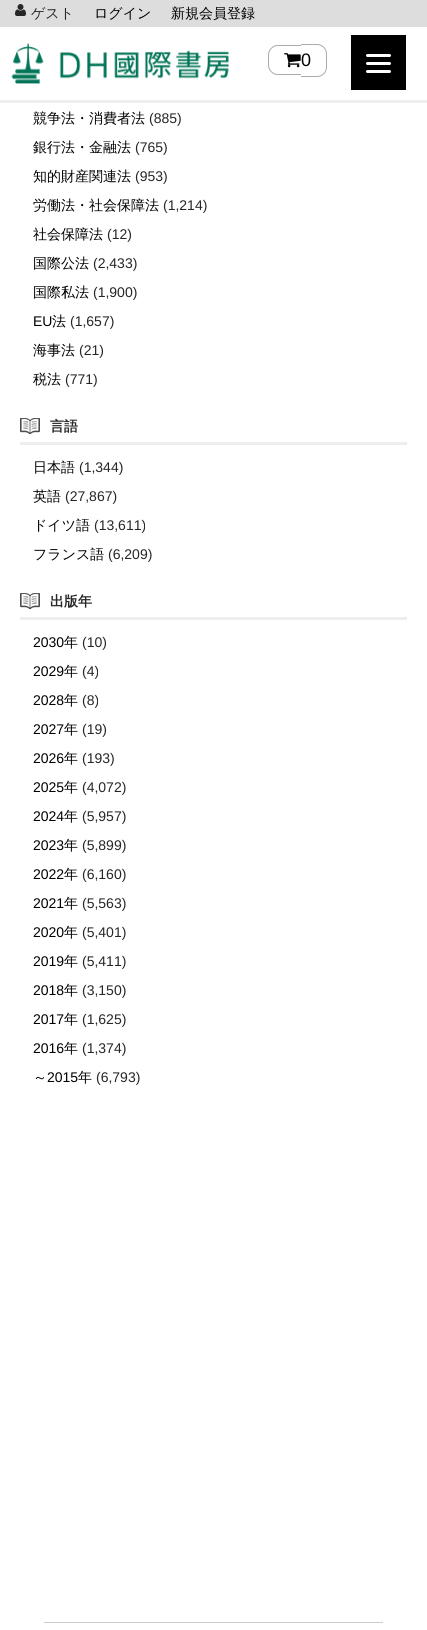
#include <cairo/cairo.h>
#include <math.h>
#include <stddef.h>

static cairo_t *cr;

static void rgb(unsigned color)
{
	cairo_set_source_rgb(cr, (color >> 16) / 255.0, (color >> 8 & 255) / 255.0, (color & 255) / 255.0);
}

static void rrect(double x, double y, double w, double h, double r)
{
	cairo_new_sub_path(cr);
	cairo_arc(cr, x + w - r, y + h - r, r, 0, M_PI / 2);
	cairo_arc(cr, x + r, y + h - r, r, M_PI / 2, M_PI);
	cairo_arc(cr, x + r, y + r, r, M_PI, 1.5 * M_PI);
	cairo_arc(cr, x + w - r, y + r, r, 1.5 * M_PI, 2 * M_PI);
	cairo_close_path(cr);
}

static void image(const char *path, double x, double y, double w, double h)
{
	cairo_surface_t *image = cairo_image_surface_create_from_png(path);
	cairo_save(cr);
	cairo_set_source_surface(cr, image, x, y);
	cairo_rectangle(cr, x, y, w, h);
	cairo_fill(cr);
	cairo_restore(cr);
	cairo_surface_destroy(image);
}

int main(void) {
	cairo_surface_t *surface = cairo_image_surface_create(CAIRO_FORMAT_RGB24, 427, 1630);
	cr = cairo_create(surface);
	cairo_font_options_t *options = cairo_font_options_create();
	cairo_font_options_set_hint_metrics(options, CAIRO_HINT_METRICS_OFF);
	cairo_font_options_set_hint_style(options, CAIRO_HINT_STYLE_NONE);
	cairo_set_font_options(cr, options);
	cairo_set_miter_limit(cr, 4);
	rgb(0xffffff);
	cairo_paint(cr);
	rgb(0xefefef);
	cairo_rectangle(cr, 0, 100, 427, 3);
	cairo_fill(cr);
	rgb(0xdddddd);
	cairo_rectangle(cr, 0, 0, 427, 27);
	cairo_fill(cr);
	image("img/1.png", 15, 4, 11, 12);
	image("img/2.png", 11, 43, 218, 41);
	rgb(0xaaaaaa);
	cairo_set_fill_rule(cr, CAIRO_FILL_RULE_EVEN_ODD);
	cairo_new_path(cr);
	cairo_move_to(cr, 278, 45);
	cairo_line_to(cr, 301, 45);
	cairo_line_to(cr, 301, 75);
	cairo_line_to(cr, 278, 75);
	cairo_curve_to(cr, 272.5, 75, 268, 70.5, 268, 65);
	cairo_line_to(cr, 268, 55);
	cairo_curve_to(cr, 268, 49.5, 272.5, 45, 278, 45);
	cairo_close_path(cr);
	cairo_move_to(cr, 278, 46);
	cairo_line_to(cr, 301, 46);
	cairo_line_to(cr, 301, 74);
	cairo_line_to(cr, 278, 74);
	cairo_curve_to(cr, 273, 74, 269, 70, 269, 65);
	cairo_line_to(cr, 269, 55);
	cairo_curve_to(cr, 269, 50, 273, 46, 278, 46);
	cairo_close_path(cr);
	cairo_move_to(cr, 301, 44);
	cairo_line_to(cr, 317, 44);
	cairo_curve_to(cr, 322.5, 44, 327, 48.5, 327, 54);
	cairo_line_to(cr, 327, 67);
	cairo_curve_to(cr, 327, 72.5, 322.5, 77, 317, 77);
	cairo_line_to(cr, 301, 77);
	cairo_close_path(cr);
	cairo_move_to(cr, 301, 45);
	cairo_line_to(cr, 317, 45);
	cairo_curve_to(cr, 322, 45, 326, 49, 326, 54);
	cairo_line_to(cr, 326, 67);
	cairo_curve_to(cr, 326, 72, 322, 76, 317, 76);
	cairo_line_to(cr, 301, 76);
	cairo_close_path(cr);
	cairo_fill(cr);
	image("img/3.png", 284, 53, 17, 15);
	rgb(0x000000);
	cairo_rectangle(cr, 351, 35, 55, 55);
	cairo_fill(cr);
	rgb(0xffffff);
	rrect(366, 62, 25, 3, 1.5);
	cairo_fill(cr);
	rrect(366, 54, 25, 3, 1.5);
	cairo_fill(cr);
	rrect(366, 70, 25, 3, 1.5);
	cairo_fill(cr);
	rgb(0xeeeeee);
	cairo_rectangle(cr, 20, 442, 387, 3);
	cairo_fill(cr);
	image("img/4.png", 20, 418, 20, 16);
	cairo_rectangle(cr, 20, 617, 387, 3);
	cairo_fill(cr);
	image("img/4.png", 20, 593, 20, 16);
	rgb(0xcccccc);
	cairo_rectangle(cr, 44, 1622, 339, 1);
	cairo_fill(cr);
	cairo_select_font_face(cr, "WenQuanYi Zen Hei Medium", CAIRO_FONT_SLANT_NORMAL, CAIRO_FONT_WEIGHT_NORMAL);
	cairo_set_font_size(cr, 14);
	rgb(0x262626);
	cairo_move_to(cr, 31, 18);
	cairo_show_text(cr, "ゲスト");
	rgb(0x000000);
	cairo_move_to(cr, 94, 18);
	cairo_show_text(cr, "ログイン");
	cairo_move_to(cr, 171, 18);
	cairo_show_text(cr, "新規会員登録");
	cairo_select_font_face(cr, "Liberation Sans", CAIRO_FONT_SLANT_NORMAL, CAIRO_FONT_WEIGHT_NORMAL);
	cairo_set_font_size(cr, 18);
	cairo_move_to(cr, 301, 66);
	cairo_show_text(cr, "0");
	cairo_select_font_face(cr, "WenQuanYi Zen Hei Medium", CAIRO_FONT_SLANT_NORMAL, CAIRO_FONT_WEIGHT_NORMAL);
	cairo_set_font_size(cr, 14);
	cairo_move_to(cr, 33, 123);
	cairo_show_text(cr, "競争法・消費者法");
	cairo_select_font_face(cr, "Liberation Sans", CAIRO_FONT_SLANT_NORMAL, CAIRO_FONT_WEIGHT_NORMAL);
	rgb(0x262626);
	cairo_move_to(cr, 149, 123);
	cairo_show_text(cr, "(885)");
	cairo_select_font_face(cr, "WenQuanYi Zen Hei Medium", CAIRO_FONT_SLANT_NORMAL, CAIRO_FONT_WEIGHT_NORMAL);
	rgb(0x000000);
	cairo_move_to(cr, 33, 152);
	cairo_show_text(cr, "銀行法・金融法");
	cairo_select_font_face(cr, "Liberation Sans", CAIRO_FONT_SLANT_NORMAL, CAIRO_FONT_WEIGHT_NORMAL);
	rgb(0x262626);
	cairo_move_to(cr, 135, 152);
	cairo_show_text(cr, "(765)");
	cairo_select_font_face(cr, "WenQuanYi Zen Hei Medium", CAIRO_FONT_SLANT_NORMAL, CAIRO_FONT_WEIGHT_NORMAL);
	rgb(0x000000);
	cairo_move_to(cr, 33, 181);
	cairo_show_text(cr, "知的財産関連法");
	cairo_select_font_face(cr, "Liberation Sans", CAIRO_FONT_SLANT_NORMAL, CAIRO_FONT_WEIGHT_NORMAL);
	rgb(0x262626);
	cairo_move_to(cr, 135, 181);
	cairo_show_text(cr, "(953)");
	cairo_select_font_face(cr, "WenQuanYi Zen Hei Medium", CAIRO_FONT_SLANT_NORMAL, CAIRO_FONT_WEIGHT_NORMAL);
	rgb(0x000000);
	cairo_move_to(cr, 33, 210);
	cairo_show_text(cr, "労働法・社会保障法");
	cairo_select_font_face(cr, "Liberation Sans", CAIRO_FONT_SLANT_NORMAL, CAIRO_FONT_WEIGHT_NORMAL);
	rgb(0x262626);
	cairo_move_to(cr, 163, 210);
	cairo_show_text(cr, "(1,214)");
	cairo_select_font_face(cr, "WenQuanYi Zen Hei Medium", CAIRO_FONT_SLANT_NORMAL, CAIRO_FONT_WEIGHT_NORMAL);
	rgb(0x000000);
	cairo_move_to(cr, 33, 239);
	cairo_show_text(cr, "社会保障法");
	cairo_select_font_face(cr, "Liberation Sans", CAIRO_FONT_SLANT_NORMAL, CAIRO_FONT_WEIGHT_NORMAL);
	rgb(0x262626);
	cairo_move_to(cr, 107, 239);
	cairo_show_text(cr, "(12)");
	cairo_select_font_face(cr, "WenQuanYi Zen Hei Medium", CAIRO_FONT_SLANT_NORMAL, CAIRO_FONT_WEIGHT_NORMAL);
	rgb(0x000000);
	cairo_move_to(cr, 33, 268);
	cairo_show_text(cr, "国際公法");
	cairo_select_font_face(cr, "Liberation Sans", CAIRO_FONT_SLANT_NORMAL, CAIRO_FONT_WEIGHT_NORMAL);
	rgb(0x262626);
	cairo_move_to(cr, 93, 268);
	cairo_show_text(cr, "(2,433)");
	cairo_select_font_face(cr, "WenQuanYi Zen Hei Medium", CAIRO_FONT_SLANT_NORMAL, CAIRO_FONT_WEIGHT_NORMAL);
	rgb(0x000000);
	cairo_move_to(cr, 33, 297);
	cairo_show_text(cr, "国際私法");
	cairo_select_font_face(cr, "Liberation Sans", CAIRO_FONT_SLANT_NORMAL, CAIRO_FONT_WEIGHT_NORMAL);
	rgb(0x262626);
	cairo_move_to(cr, 93, 297);
	cairo_show_text(cr, "(1,900)");
	rgb(0x000000);
	cairo_move_to(cr, 33, 326);
	cairo_show_text(cr, "EU");
	cairo_select_font_face(cr, "WenQuanYi Zen Hei Medium", CAIRO_FONT_SLANT_NORMAL, CAIRO_FONT_WEIGHT_NORMAL);
	cairo_move_to(cr, 52, 326);
	cairo_show_text(cr, "法");
	cairo_select_font_face(cr, "Liberation Sans", CAIRO_FONT_SLANT_NORMAL, CAIRO_FONT_WEIGHT_NORMAL);
	rgb(0x262626);
	cairo_move_to(cr, 70, 326);
	cairo_show_text(cr, "(1,657)");
	cairo_select_font_face(cr, "WenQuanYi Zen Hei Medium", CAIRO_FONT_SLANT_NORMAL, CAIRO_FONT_WEIGHT_NORMAL);
	rgb(0x000000);
	cairo_move_to(cr, 33, 355);
	cairo_show_text(cr, "海事法");
	cairo_select_font_face(cr, "Liberation Sans", CAIRO_FONT_SLANT_NORMAL, CAIRO_FONT_WEIGHT_NORMAL);
	rgb(0x262626);
	cairo_move_to(cr, 79, 355);
	cairo_show_text(cr, "(21)");
	cairo_select_font_face(cr, "WenQuanYi Zen Hei Medium", CAIRO_FONT_SLANT_NORMAL, CAIRO_FONT_WEIGHT_NORMAL);
	rgb(0x000000);
	cairo_move_to(cr, 33, 384);
	cairo_show_text(cr, "税法");
	cairo_select_font_face(cr, "Liberation Sans", CAIRO_FONT_SLANT_NORMAL, CAIRO_FONT_WEIGHT_NORMAL);
	rgb(0x262626);
	cairo_move_to(cr, 65, 384);
	cairo_show_text(cr, "(771)");
	cairo_select_font_face(cr, "WenQuanYi Zen Hei", CAIRO_FONT_SLANT_NORMAL, CAIRO_FONT_WEIGHT_BOLD);
	cairo_move_to(cr, 50, 431);
	cairo_show_text(cr, "言語");
	cairo_select_font_face(cr, "WenQuanYi Zen Hei Medium", CAIRO_FONT_SLANT_NORMAL, CAIRO_FONT_WEIGHT_NORMAL);
	rgb(0x000000);
	cairo_move_to(cr, 33, 472);
	cairo_show_text(cr, "日本語");
	cairo_select_font_face(cr, "Liberation Sans", CAIRO_FONT_SLANT_NORMAL, CAIRO_FONT_WEIGHT_NORMAL);
	rgb(0x262626);
	cairo_move_to(cr, 79, 472);
	cairo_show_text(cr, "(1,344)");
	cairo_select_font_face(cr, "WenQuanYi Zen Hei Medium", CAIRO_FONT_SLANT_NORMAL, CAIRO_FONT_WEIGHT_NORMAL);
	rgb(0x000000);
	cairo_move_to(cr, 33, 501);
	cairo_show_text(cr, "英語");
	cairo_select_font_face(cr, "Liberation Sans", CAIRO_FONT_SLANT_NORMAL, CAIRO_FONT_WEIGHT_NORMAL);
	rgb(0x262626);
	cairo_move_to(cr, 65, 501);
	cairo_show_text(cr, "(27,867)");
	cairo_select_font_face(cr, "WenQuanYi Zen Hei Medium", CAIRO_FONT_SLANT_NORMAL, CAIRO_FONT_WEIGHT_NORMAL);
	rgb(0x000000);
	cairo_move_to(cr, 33, 530);
	cairo_show_text(cr, "ドイツ語");
	cairo_select_font_face(cr, "Liberation Sans", CAIRO_FONT_SLANT_NORMAL, CAIRO_FONT_WEIGHT_NORMAL);
	rgb(0x262626);
	cairo_move_to(cr, 94, 530);
	cairo_show_text(cr, "(13,611)");
	cairo_select_font_face(cr, "WenQuanYi Zen Hei Medium", CAIRO_FONT_SLANT_NORMAL, CAIRO_FONT_WEIGHT_NORMAL);
	rgb(0x000000);
	cairo_move_to(cr, 33, 559);
	cairo_show_text(cr, "フランス語");
	cairo_select_font_face(cr, "Liberation Sans", CAIRO_FONT_SLANT_NORMAL, CAIRO_FONT_WEIGHT_NORMAL);
	rgb(0x262626);
	cairo_move_to(cr, 108, 559);
	cairo_show_text(cr, "(6,209)");
	cairo_select_font_face(cr, "WenQuanYi Zen Hei", CAIRO_FONT_SLANT_NORMAL, CAIRO_FONT_WEIGHT_BOLD);
	cairo_move_to(cr, 50, 606);
	cairo_show_text(cr, "出版年");
	cairo_select_font_face(cr, "Liberation Sans", CAIRO_FONT_SLANT_NORMAL, CAIRO_FONT_WEIGHT_NORMAL);
	rgb(0x000000);
	cairo_move_to(cr, 33, 647);
	cairo_show_text(cr, "2030");
	cairo_select_font_face(cr, "WenQuanYi Zen Hei Medium", CAIRO_FONT_SLANT_NORMAL, CAIRO_FONT_WEIGHT_NORMAL);
	cairo_move_to(cr, 64, 647);
	cairo_show_text(cr, "年");
	cairo_select_font_face(cr, "Liberation Sans", CAIRO_FONT_SLANT_NORMAL, CAIRO_FONT_WEIGHT_NORMAL);
	rgb(0x262626);
	cairo_move_to(cr, 82, 647);
	cairo_show_text(cr, "(10)");
	rgb(0x000000);
	cairo_move_to(cr, 33, 676);
	cairo_show_text(cr, "2029");
	cairo_select_font_face(cr, "WenQuanYi Zen Hei Medium", CAIRO_FONT_SLANT_NORMAL, CAIRO_FONT_WEIGHT_NORMAL);
	cairo_move_to(cr, 64, 676);
	cairo_show_text(cr, "年");
	cairo_select_font_face(cr, "Liberation Sans", CAIRO_FONT_SLANT_NORMAL, CAIRO_FONT_WEIGHT_NORMAL);
	rgb(0x262626);
	cairo_move_to(cr, 82, 676);
	cairo_show_text(cr, "(4)");
	rgb(0x000000);
	cairo_move_to(cr, 33, 705);
	cairo_show_text(cr, "2028");
	cairo_select_font_face(cr, "WenQuanYi Zen Hei Medium", CAIRO_FONT_SLANT_NORMAL, CAIRO_FONT_WEIGHT_NORMAL);
	cairo_move_to(cr, 64, 705);
	cairo_show_text(cr, "年");
	cairo_select_font_face(cr, "Liberation Sans", CAIRO_FONT_SLANT_NORMAL, CAIRO_FONT_WEIGHT_NORMAL);
	rgb(0x262626);
	cairo_move_to(cr, 82, 705);
	cairo_show_text(cr, "(8)");
	rgb(0x000000);
	cairo_move_to(cr, 33, 734);
	cairo_show_text(cr, "2027");
	cairo_select_font_face(cr, "WenQuanYi Zen Hei Medium", CAIRO_FONT_SLANT_NORMAL, CAIRO_FONT_WEIGHT_NORMAL);
	cairo_move_to(cr, 64, 734);
	cairo_show_text(cr, "年");
	cairo_select_font_face(cr, "Liberation Sans", CAIRO_FONT_SLANT_NORMAL, CAIRO_FONT_WEIGHT_NORMAL);
	rgb(0x262626);
	cairo_move_to(cr, 82, 734);
	cairo_show_text(cr, "(19)");
	rgb(0x000000);
	cairo_move_to(cr, 33, 763);
	cairo_show_text(cr, "2026");
	cairo_select_font_face(cr, "WenQuanYi Zen Hei Medium", CAIRO_FONT_SLANT_NORMAL, CAIRO_FONT_WEIGHT_NORMAL);
	cairo_move_to(cr, 64, 763);
	cairo_show_text(cr, "年");
	cairo_select_font_face(cr, "Liberation Sans", CAIRO_FONT_SLANT_NORMAL, CAIRO_FONT_WEIGHT_NORMAL);
	rgb(0x262626);
	cairo_move_to(cr, 82, 763);
	cairo_show_text(cr, "(193)");
	rgb(0x000000);
	cairo_move_to(cr, 33, 792);
	cairo_show_text(cr, "2025");
	cairo_select_font_face(cr, "WenQuanYi Zen Hei Medium", CAIRO_FONT_SLANT_NORMAL, CAIRO_FONT_WEIGHT_NORMAL);
	cairo_move_to(cr, 64, 792);
	cairo_show_text(cr, "年");
	cairo_select_font_face(cr, "Liberation Sans", CAIRO_FONT_SLANT_NORMAL, CAIRO_FONT_WEIGHT_NORMAL);
	rgb(0x262626);
	cairo_move_to(cr, 82, 792);
	cairo_show_text(cr, "(4,072)");
	rgb(0x000000);
	cairo_move_to(cr, 33, 821);
	cairo_show_text(cr, "2024");
	cairo_select_font_face(cr, "WenQuanYi Zen Hei Medium", CAIRO_FONT_SLANT_NORMAL, CAIRO_FONT_WEIGHT_NORMAL);
	cairo_move_to(cr, 64, 821);
	cairo_show_text(cr, "年");
	cairo_select_font_face(cr, "Liberation Sans", CAIRO_FONT_SLANT_NORMAL, CAIRO_FONT_WEIGHT_NORMAL);
	rgb(0x262626);
	cairo_move_to(cr, 82, 821);
	cairo_show_text(cr, "(5,957)");
	rgb(0x000000);
	cairo_move_to(cr, 33, 850);
	cairo_show_text(cr, "2023");
	cairo_select_font_face(cr, "WenQuanYi Zen Hei Medium", CAIRO_FONT_SLANT_NORMAL, CAIRO_FONT_WEIGHT_NORMAL);
	cairo_move_to(cr, 64, 850);
	cairo_show_text(cr, "年");
	cairo_select_font_face(cr, "Liberation Sans", CAIRO_FONT_SLANT_NORMAL, CAIRO_FONT_WEIGHT_NORMAL);
	rgb(0x262626);
	cairo_move_to(cr, 82, 850);
	cairo_show_text(cr, "(5,899)");
	rgb(0x000000);
	cairo_move_to(cr, 33, 879);
	cairo_show_text(cr, "2022");
	cairo_select_font_face(cr, "WenQuanYi Zen Hei Medium", CAIRO_FONT_SLANT_NORMAL, CAIRO_FONT_WEIGHT_NORMAL);
	cairo_move_to(cr, 64, 879);
	cairo_show_text(cr, "年");
	cairo_select_font_face(cr, "Liberation Sans", CAIRO_FONT_SLANT_NORMAL, CAIRO_FONT_WEIGHT_NORMAL);
	rgb(0x262626);
	cairo_move_to(cr, 82, 879);
	cairo_show_text(cr, "(6,160)");
	rgb(0x000000);
	cairo_move_to(cr, 33, 908);
	cairo_show_text(cr, "2021");
	cairo_select_font_face(cr, "WenQuanYi Zen Hei Medium", CAIRO_FONT_SLANT_NORMAL, CAIRO_FONT_WEIGHT_NORMAL);
	cairo_move_to(cr, 64, 908);
	cairo_show_text(cr, "年");
	cairo_select_font_face(cr, "Liberation Sans", CAIRO_FONT_SLANT_NORMAL, CAIRO_FONT_WEIGHT_NORMAL);
	rgb(0x262626);
	cairo_move_to(cr, 82, 908);
	cairo_show_text(cr, "(5,563)");
	rgb(0x000000);
	cairo_move_to(cr, 33, 937);
	cairo_show_text(cr, "2020");
	cairo_select_font_face(cr, "WenQuanYi Zen Hei Medium", CAIRO_FONT_SLANT_NORMAL, CAIRO_FONT_WEIGHT_NORMAL);
	cairo_move_to(cr, 64, 937);
	cairo_show_text(cr, "年");
	cairo_select_font_face(cr, "Liberation Sans", CAIRO_FONT_SLANT_NORMAL, CAIRO_FONT_WEIGHT_NORMAL);
	rgb(0x262626);
	cairo_move_to(cr, 82, 937);
	cairo_show_text(cr, "(5,401)");
	rgb(0x000000);
	cairo_move_to(cr, 33, 966);
	cairo_show_text(cr, "2019");
	cairo_select_font_face(cr, "WenQuanYi Zen Hei Medium", CAIRO_FONT_SLANT_NORMAL, CAIRO_FONT_WEIGHT_NORMAL);
	cairo_move_to(cr, 64, 966);
	cairo_show_text(cr, "年");
	cairo_select_font_face(cr, "Liberation Sans", CAIRO_FONT_SLANT_NORMAL, CAIRO_FONT_WEIGHT_NORMAL);
	rgb(0x262626);
	cairo_move_to(cr, 82, 966);
	cairo_show_text(cr, "(5,411)");
	rgb(0x000000);
	cairo_move_to(cr, 33, 995);
	cairo_show_text(cr, "2018");
	cairo_select_font_face(cr, "WenQuanYi Zen Hei Medium", CAIRO_FONT_SLANT_NORMAL, CAIRO_FONT_WEIGHT_NORMAL);
	cairo_move_to(cr, 64, 995);
	cairo_show_text(cr, "年");
	cairo_select_font_face(cr, "Liberation Sans", CAIRO_FONT_SLANT_NORMAL, CAIRO_FONT_WEIGHT_NORMAL);
	rgb(0x262626);
	cairo_move_to(cr, 82, 995);
	cairo_show_text(cr, "(3,150)");
	rgb(0x000000);
	cairo_move_to(cr, 33, 1024);
	cairo_show_text(cr, "2017");
	cairo_select_font_face(cr, "WenQuanYi Zen Hei Medium", CAIRO_FONT_SLANT_NORMAL, CAIRO_FONT_WEIGHT_NORMAL);
	cairo_move_to(cr, 64, 1024);
	cairo_show_text(cr, "年");
	cairo_select_font_face(cr, "Liberation Sans", CAIRO_FONT_SLANT_NORMAL, CAIRO_FONT_WEIGHT_NORMAL);
	rgb(0x262626);
	cairo_move_to(cr, 82, 1024);
	cairo_show_text(cr, "(1,625)");
	rgb(0x000000);
	cairo_move_to(cr, 33, 1053);
	cairo_show_text(cr, "2016");
	cairo_select_font_face(cr, "WenQuanYi Zen Hei Medium", CAIRO_FONT_SLANT_NORMAL, CAIRO_FONT_WEIGHT_NORMAL);
	cairo_move_to(cr, 64, 1053);
	cairo_show_text(cr, "年");
	cairo_select_font_face(cr, "Liberation Sans", CAIRO_FONT_SLANT_NORMAL, CAIRO_FONT_WEIGHT_NORMAL);
	rgb(0x262626);
	cairo_move_to(cr, 82, 1053);
	cairo_show_text(cr, "(1,374)");
	cairo_select_font_face(cr, "WenQuanYi Zen Hei Medium", CAIRO_FONT_SLANT_NORMAL, CAIRO_FONT_WEIGHT_NORMAL);
	rgb(0x000000);
	cairo_move_to(cr, 33, 1082);
	cairo_show_text(cr, "～");
	cairo_select_font_face(cr, "Liberation Sans", CAIRO_FONT_SLANT_NORMAL, CAIRO_FONT_WEIGHT_NORMAL);
	cairo_move_to(cr, 47, 1082);
	cairo_show_text(cr, "2015");
	cairo_select_font_face(cr, "WenQuanYi Zen Hei Medium", CAIRO_FONT_SLANT_NORMAL, CAIRO_FONT_WEIGHT_NORMAL);
	cairo_move_to(cr, 78, 1082);
	cairo_show_text(cr, "年");
	cairo_select_font_face(cr, "Liberation Sans", CAIRO_FONT_SLANT_NORMAL, CAIRO_FONT_WEIGHT_NORMAL);
	rgb(0x262626);
	cairo_move_to(cr, 96, 1082);
	cairo_show_text(cr, "(6,793)");
	cairo_surface_write_to_png(surface, "page.png");
	cairo_font_options_destroy(options);
	cairo_destroy(cr);
	cairo_surface_destroy(surface);
	return 0;
}
